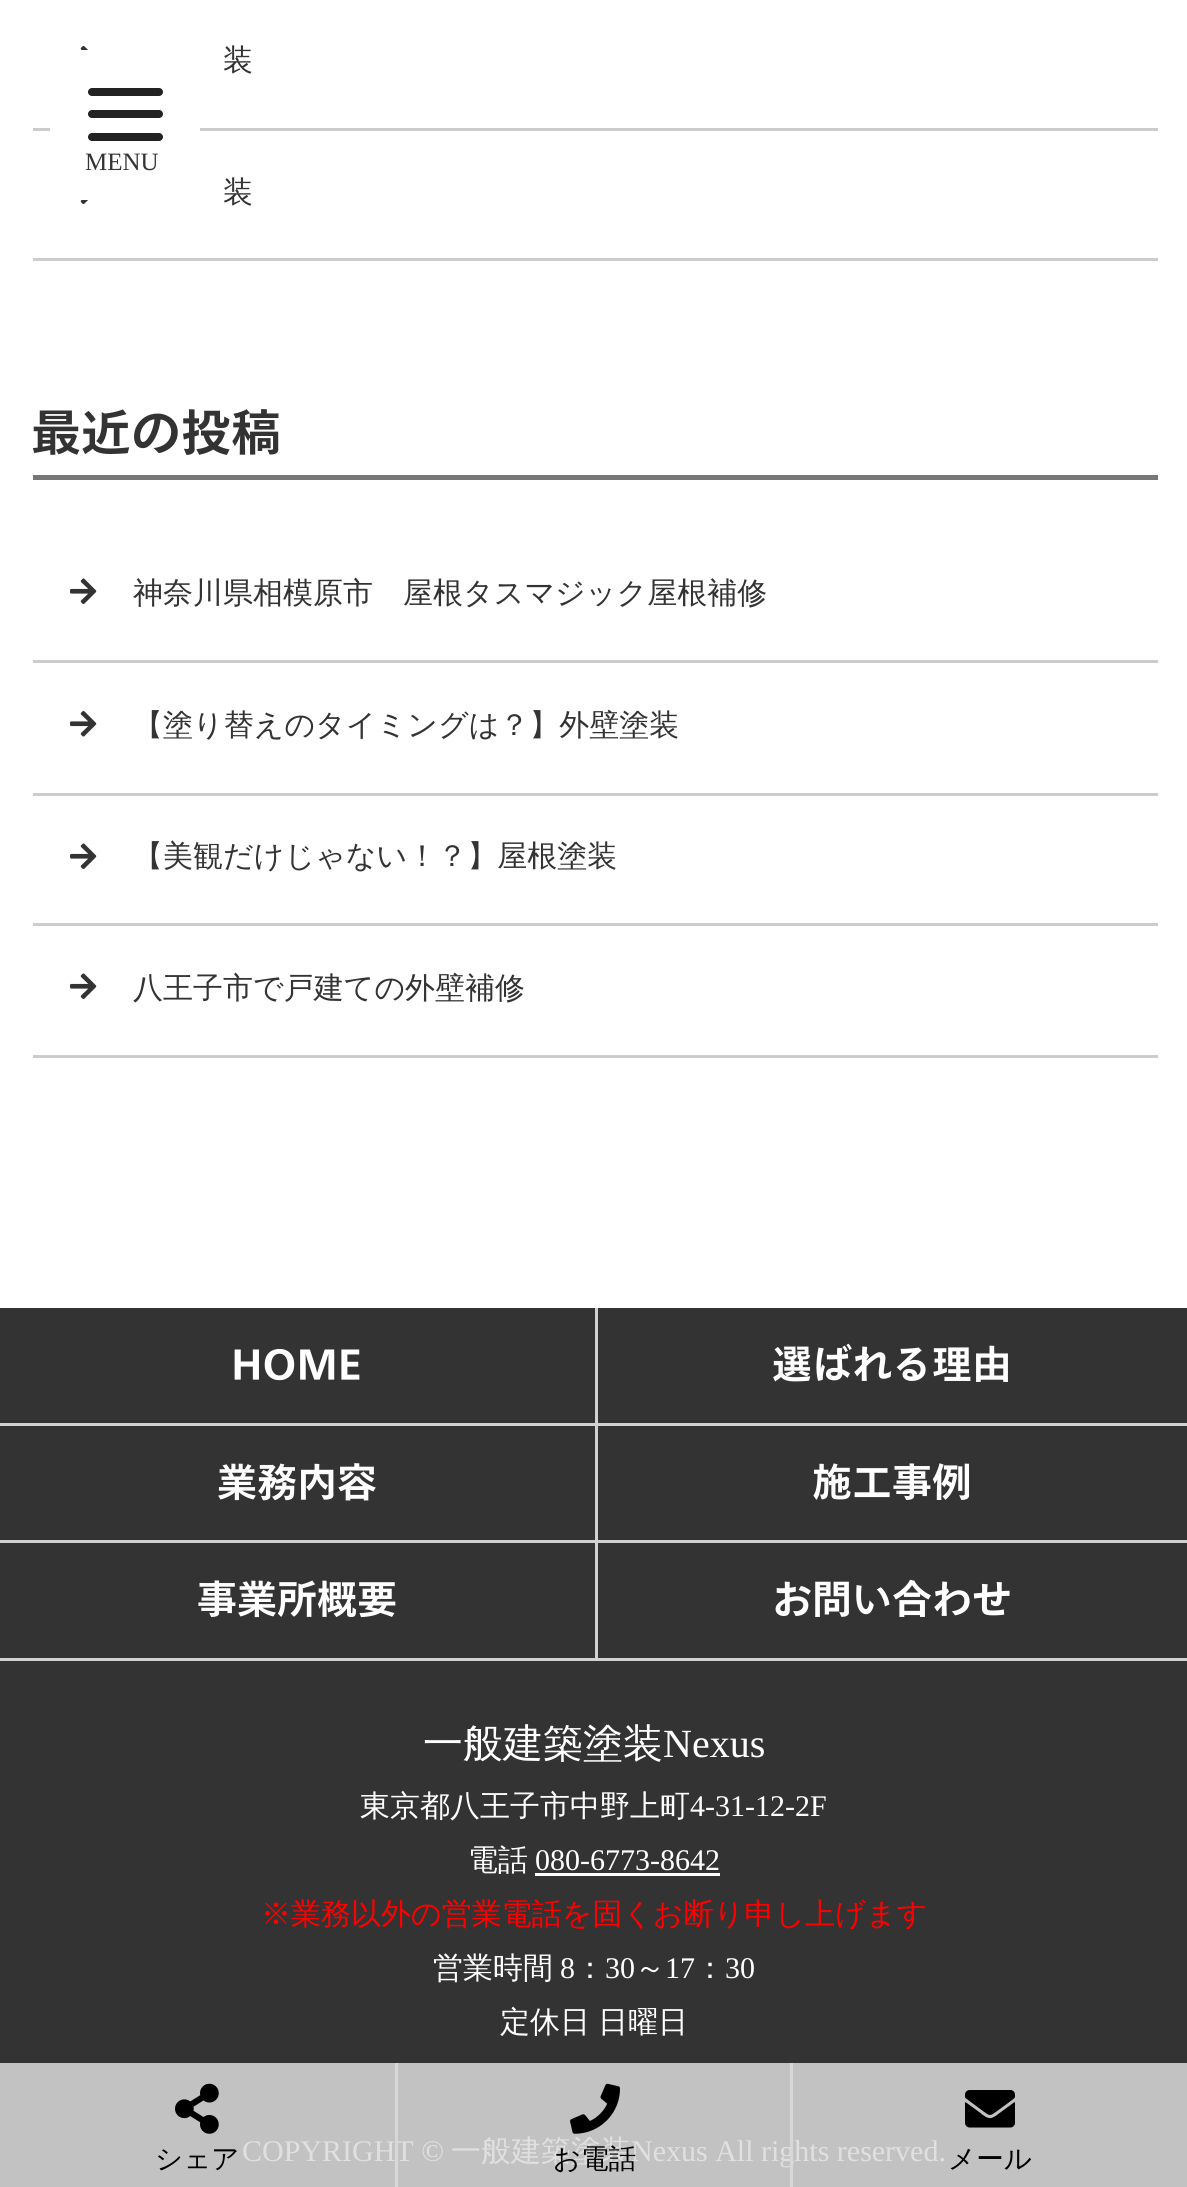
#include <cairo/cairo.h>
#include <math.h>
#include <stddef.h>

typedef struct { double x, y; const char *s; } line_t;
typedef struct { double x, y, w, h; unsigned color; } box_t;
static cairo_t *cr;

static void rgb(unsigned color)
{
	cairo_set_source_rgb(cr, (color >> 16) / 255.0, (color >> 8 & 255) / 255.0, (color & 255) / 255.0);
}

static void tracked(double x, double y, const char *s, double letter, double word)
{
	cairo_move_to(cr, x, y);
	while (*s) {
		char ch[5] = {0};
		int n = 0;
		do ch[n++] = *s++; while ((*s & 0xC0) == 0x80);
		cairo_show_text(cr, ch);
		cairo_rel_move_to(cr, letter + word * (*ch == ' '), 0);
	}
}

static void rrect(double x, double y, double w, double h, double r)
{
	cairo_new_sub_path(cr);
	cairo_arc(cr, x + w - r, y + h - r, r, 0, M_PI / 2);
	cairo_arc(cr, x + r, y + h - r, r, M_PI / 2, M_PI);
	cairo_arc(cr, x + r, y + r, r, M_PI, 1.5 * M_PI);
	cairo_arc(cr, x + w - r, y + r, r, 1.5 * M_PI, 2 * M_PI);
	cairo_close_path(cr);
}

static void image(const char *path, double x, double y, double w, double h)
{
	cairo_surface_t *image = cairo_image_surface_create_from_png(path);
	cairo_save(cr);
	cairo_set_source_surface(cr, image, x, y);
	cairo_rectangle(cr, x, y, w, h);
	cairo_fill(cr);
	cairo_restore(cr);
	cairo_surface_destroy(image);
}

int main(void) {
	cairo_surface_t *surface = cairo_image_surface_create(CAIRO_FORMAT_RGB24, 1187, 2187);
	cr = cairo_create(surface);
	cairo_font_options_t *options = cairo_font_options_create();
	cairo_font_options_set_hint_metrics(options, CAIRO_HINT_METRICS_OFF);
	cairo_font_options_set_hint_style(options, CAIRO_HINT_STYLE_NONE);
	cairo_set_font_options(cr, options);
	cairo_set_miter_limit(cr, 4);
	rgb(0xffffff);
	cairo_paint(cr);
	rgb(0xcccccc);
	cairo_rectangle(cr, 33, 128, 1125, 3);
	cairo_fill(cr);
	image("img/1.png", 80, 46, 8, 4);
	cairo_rectangle(cr, 33, 258, 1125, 3);
	cairo_fill(cr);
	image("img/2.png", 80, 200, 8, 4);
	rgb(0x777777);
	cairo_rectangle(cr, 33, 475, 1125, 5);
	cairo_fill(cr);
	rgb(0xcccccc);
	cairo_rectangle(cr, 33, 660, 1125, 3);
	cairo_fill(cr);
	image("img/3.png", 70, 578, 27, 26);
	cairo_rectangle(cr, 33, 793, 1125, 3);
	cairo_fill(cr);
	image("img/4.png", 70, 711, 27, 26);
	cairo_rectangle(cr, 33, 923, 1125, 3);
	cairo_fill(cr);
	image("img/3.png", 70, 843, 27, 26);
	cairo_rectangle(cr, 33, 1055, 1125, 3);
	cairo_fill(cr);
	image("img/3.png", 70, 973, 27, 26);
	rgb(0xffffff);
	cairo_rectangle(cr, 50, 128, 150, 3);
	cairo_fill(cr);
	rgb(0x222222);
	rrect(88, 88, 75, 8, 4);
	cairo_fill(cr);
	rrect(88, 110, 75, 8, 4);
	cairo_fill(cr);
	rrect(88, 133, 75, 8, 4);
	cairo_fill(cr);
	{
		static const box_t items[] = {
			{0, 1308, 1187, 755, 0x333333},
			{0, 2063, 1187, 124, 0xc2c2c2},
			{0, 1423, 1187, 3, 0xd1d1d1},
			{595, 1308, 3, 117, 0xd1d1d1},
			{0, 1540, 1187, 3, 0xd1d1d1},
			{595, 1425, 3, 118, 0xd1d1d1},
			{0, 1658, 1187, 3, 0xd1d1d1},
			{595, 1543, 3, 117, 0xd1d1d1},
			{535, 1873, 185, 3, 0xffffff},
		};
		for (size_t i = 0; i < sizeof items / sizeof *items; i++) {
			rgb(items[i].color);
			cairo_rectangle(cr, items[i].x, items[i].y, items[i].w, items[i].h);
			cairo_fill(cr);
		}
	}
	image("img/5.png", 175, 2083, 44, 51);
	image("img/6.png", 570, 2083, 50, 51);
	image("img/7.png", 965, 2090, 50, 38);
	cairo_select_font_face(cr, "WenQuanYi Zen Hei Medium", CAIRO_FONT_SLANT_NORMAL, CAIRO_FONT_WEIGHT_NORMAL);
	cairo_set_font_size(cr, 30);
	rgb(0x333333);
	cairo_move_to(cr, 223, 70);
	cairo_show_text(cr, "装");
	cairo_move_to(cr, 223, 202);
	cairo_show_text(cr, "装");
	cairo_select_font_face(cr, "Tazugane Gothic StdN", CAIRO_FONT_SLANT_NORMAL, CAIRO_FONT_WEIGHT_BOLD);
	cairo_set_font_size(cr, 50);
	cairo_move_to(cr, 31, 451);
	cairo_show_text(cr, "最近の投稿");
	cairo_select_font_face(cr, "WenQuanYi Zen Hei Medium", CAIRO_FONT_SLANT_NORMAL, CAIRO_FONT_WEIGHT_NORMAL);
	cairo_set_font_size(cr, 30);
	{
		static const line_t items[] = {
			{133, 603, "神奈川県相模原市　屋根タスマジック屋根補修"},
			{133, 735, "【塗り替えのタイミングは？】外壁塗装"},
			{133, 866, "【美観だけじゃない！？】屋根塗装"},
			{133, 998, "八王子市で戸建ての外壁補修"},
		};
		for (size_t i = 0; i < sizeof items / sizeof *items; i++) {
			cairo_move_to(cr, items[i].x, items[i].y);
			cairo_show_text(cr, items[i].s);
		}
	}
	cairo_select_font_face(cr, "Liberation Serif", CAIRO_FONT_SLANT_NORMAL, CAIRO_FONT_WEIGHT_NORMAL);
	cairo_set_font_size(cr, 25);
	cairo_move_to(cr, 85, 170);
	cairo_show_text(cr, "MENU");
	cairo_select_font_face(cr, "Tazugane Gothic StdN", CAIRO_FONT_SLANT_NORMAL, CAIRO_FONT_WEIGHT_BOLD);
	cairo_set_font_size(cr, 40);
	rgb(0xffffff);
	{
		static const line_t items[] = {
			{231, 1379, "HOME"},
			{772, 1379, "選ばれる理由"},
			{217, 1497, "業務内容"},
			{812, 1497, "施工事例"},
			{197, 1614, "事業所概要"},
			{772, 1614, "お問い合わせ"},
		};
		for (size_t i = 0; i < sizeof items / sizeof *items; i++) {
			cairo_move_to(cr, items[i].x, items[i].y);
			cairo_show_text(cr, items[i].s);
		}
	}
	cairo_select_font_face(cr, "WenQuanYi Zen Hei Medium", CAIRO_FONT_SLANT_NORMAL, CAIRO_FONT_WEIGHT_NORMAL);
	cairo_move_to(cr, 423, 1757);
	cairo_show_text(cr, "一般建築塗装");
	cairo_select_font_face(cr, "Liberation Serif", CAIRO_FONT_SLANT_NORMAL, CAIRO_FONT_WEIGHT_NORMAL);
	cairo_move_to(cr, 663, 1757);
	cairo_show_text(cr, "Nexus");
	cairo_select_font_face(cr, "WenQuanYi Zen Hei Medium", CAIRO_FONT_SLANT_NORMAL, CAIRO_FONT_WEIGHT_NORMAL);
	cairo_set_font_size(cr, 30);
	cairo_move_to(cr, 360, 1816);
	cairo_show_text(cr, "東京都八王子市中野上町");
	cairo_select_font_face(cr, "Liberation Serif", CAIRO_FONT_SLANT_NORMAL, CAIRO_FONT_WEIGHT_NORMAL);
	cairo_move_to(cr, 690, 1816);
	cairo_show_text(cr, "4-31-12-2F");
	cairo_select_font_face(cr, "WenQuanYi Zen Hei Medium", CAIRO_FONT_SLANT_NORMAL, CAIRO_FONT_WEIGHT_NORMAL);
	cairo_move_to(cr, 468, 1870);
	cairo_show_text(cr, "電話");
	cairo_select_font_face(cr, "Liberation Serif", CAIRO_FONT_SLANT_NORMAL, CAIRO_FONT_WEIGHT_NORMAL);
	cairo_move_to(cr, 535, 1870);
	cairo_show_text(cr, "080-6773-8642");
	cairo_select_font_face(cr, "WenQuanYi Zen Hei Medium", CAIRO_FONT_SLANT_NORMAL, CAIRO_FONT_WEIGHT_NORMAL);
	rgb(0xff0000);
	cairo_move_to(cr, 261, 1924);
	cairo_show_text(cr, "※業務以外の営業電話を固くお断り申し上げます");
	rgb(0xffffff);
	cairo_move_to(cr, 433, 1978);
	cairo_show_text(cr, "営業時間");
	cairo_select_font_face(cr, "Liberation Serif", CAIRO_FONT_SLANT_NORMAL, CAIRO_FONT_WEIGHT_NORMAL);
	cairo_move_to(cr, 560, 1978);
	cairo_show_text(cr, "8");
	cairo_select_font_face(cr, "WenQuanYi Zen Hei Medium", CAIRO_FONT_SLANT_NORMAL, CAIRO_FONT_WEIGHT_NORMAL);
	cairo_move_to(cr, 575, 1978);
	cairo_show_text(cr, "：");
	cairo_select_font_face(cr, "Liberation Serif", CAIRO_FONT_SLANT_NORMAL, CAIRO_FONT_WEIGHT_NORMAL);
	cairo_move_to(cr, 605, 1978);
	cairo_show_text(cr, "30");
	cairo_select_font_face(cr, "WenQuanYi Zen Hei Medium", CAIRO_FONT_SLANT_NORMAL, CAIRO_FONT_WEIGHT_NORMAL);
	cairo_move_to(cr, 635, 1978);
	cairo_show_text(cr, "～");
	cairo_select_font_face(cr, "Liberation Serif", CAIRO_FONT_SLANT_NORMAL, CAIRO_FONT_WEIGHT_NORMAL);
	cairo_move_to(cr, 665, 1978);
	cairo_show_text(cr, "17");
	cairo_select_font_face(cr, "WenQuanYi Zen Hei Medium", CAIRO_FONT_SLANT_NORMAL, CAIRO_FONT_WEIGHT_NORMAL);
	cairo_move_to(cr, 695, 1978);
	cairo_show_text(cr, "：");
	cairo_select_font_face(cr, "Liberation Serif", CAIRO_FONT_SLANT_NORMAL, CAIRO_FONT_WEIGHT_NORMAL);
	cairo_move_to(cr, 725, 1978);
	cairo_show_text(cr, "30");
	cairo_select_font_face(cr, "WenQuanYi Zen Hei Medium", CAIRO_FONT_SLANT_NORMAL, CAIRO_FONT_WEIGHT_NORMAL);
	tracked(500, 2032, "定休日 日曜日", 0, -1);
	cairo_select_font_face(cr, "Liberation Serif", CAIRO_FONT_SLANT_NORMAL, CAIRO_FONT_WEIGHT_NORMAL);
	rgb(0xe0e0e0);
	cairo_move_to(cr, 242, 2161);
	cairo_show_text(cr, "COPYRIGHT ©");
	cairo_select_font_face(cr, "WenQuanYi Zen Hei Medium", CAIRO_FONT_SLANT_NORMAL, CAIRO_FONT_WEIGHT_NORMAL);
	cairo_move_to(cr, 451, 2161);
	cairo_show_text(cr, "一般建築塗装");
	cairo_select_font_face(cr, "Liberation Serif", CAIRO_FONT_SLANT_NORMAL, CAIRO_FONT_WEIGHT_NORMAL);
	cairo_move_to(cr, 631, 2161);
	cairo_show_text(cr, "Nexus All rights reserved.");
	cairo_select_font_face(cr, "WenQuanYi Zen Hei Medium", CAIRO_FONT_SLANT_NORMAL, CAIRO_FONT_WEIGHT_NORMAL);
	cairo_set_font_size(cr, 27.5);
	rgb(0x000000);
	cairo_move_to(cr, 155, 2168);
	cairo_show_text(cr, "シェア");
	rgb(0xd8d8d8);
	cairo_rectangle(cr, 395, 2063, 3, 124);
	cairo_fill(cr);
	rgb(0x000000);
	cairo_move_to(cr, 553, 2168);
	cairo_show_text(cr, "お電話");
	rgb(0xd8d8d8);
	cairo_rectangle(cr, 790, 2063, 3, 124);
	cairo_fill(cr);
	rgb(0x000000);
	cairo_move_to(cr, 948, 2168);
	cairo_show_text(cr, "メール");
	cairo_surface_write_to_png(surface, "page.png");
	cairo_font_options_destroy(options);
	cairo_destroy(cr);
	cairo_surface_destroy(surface);
	return 0;
}
